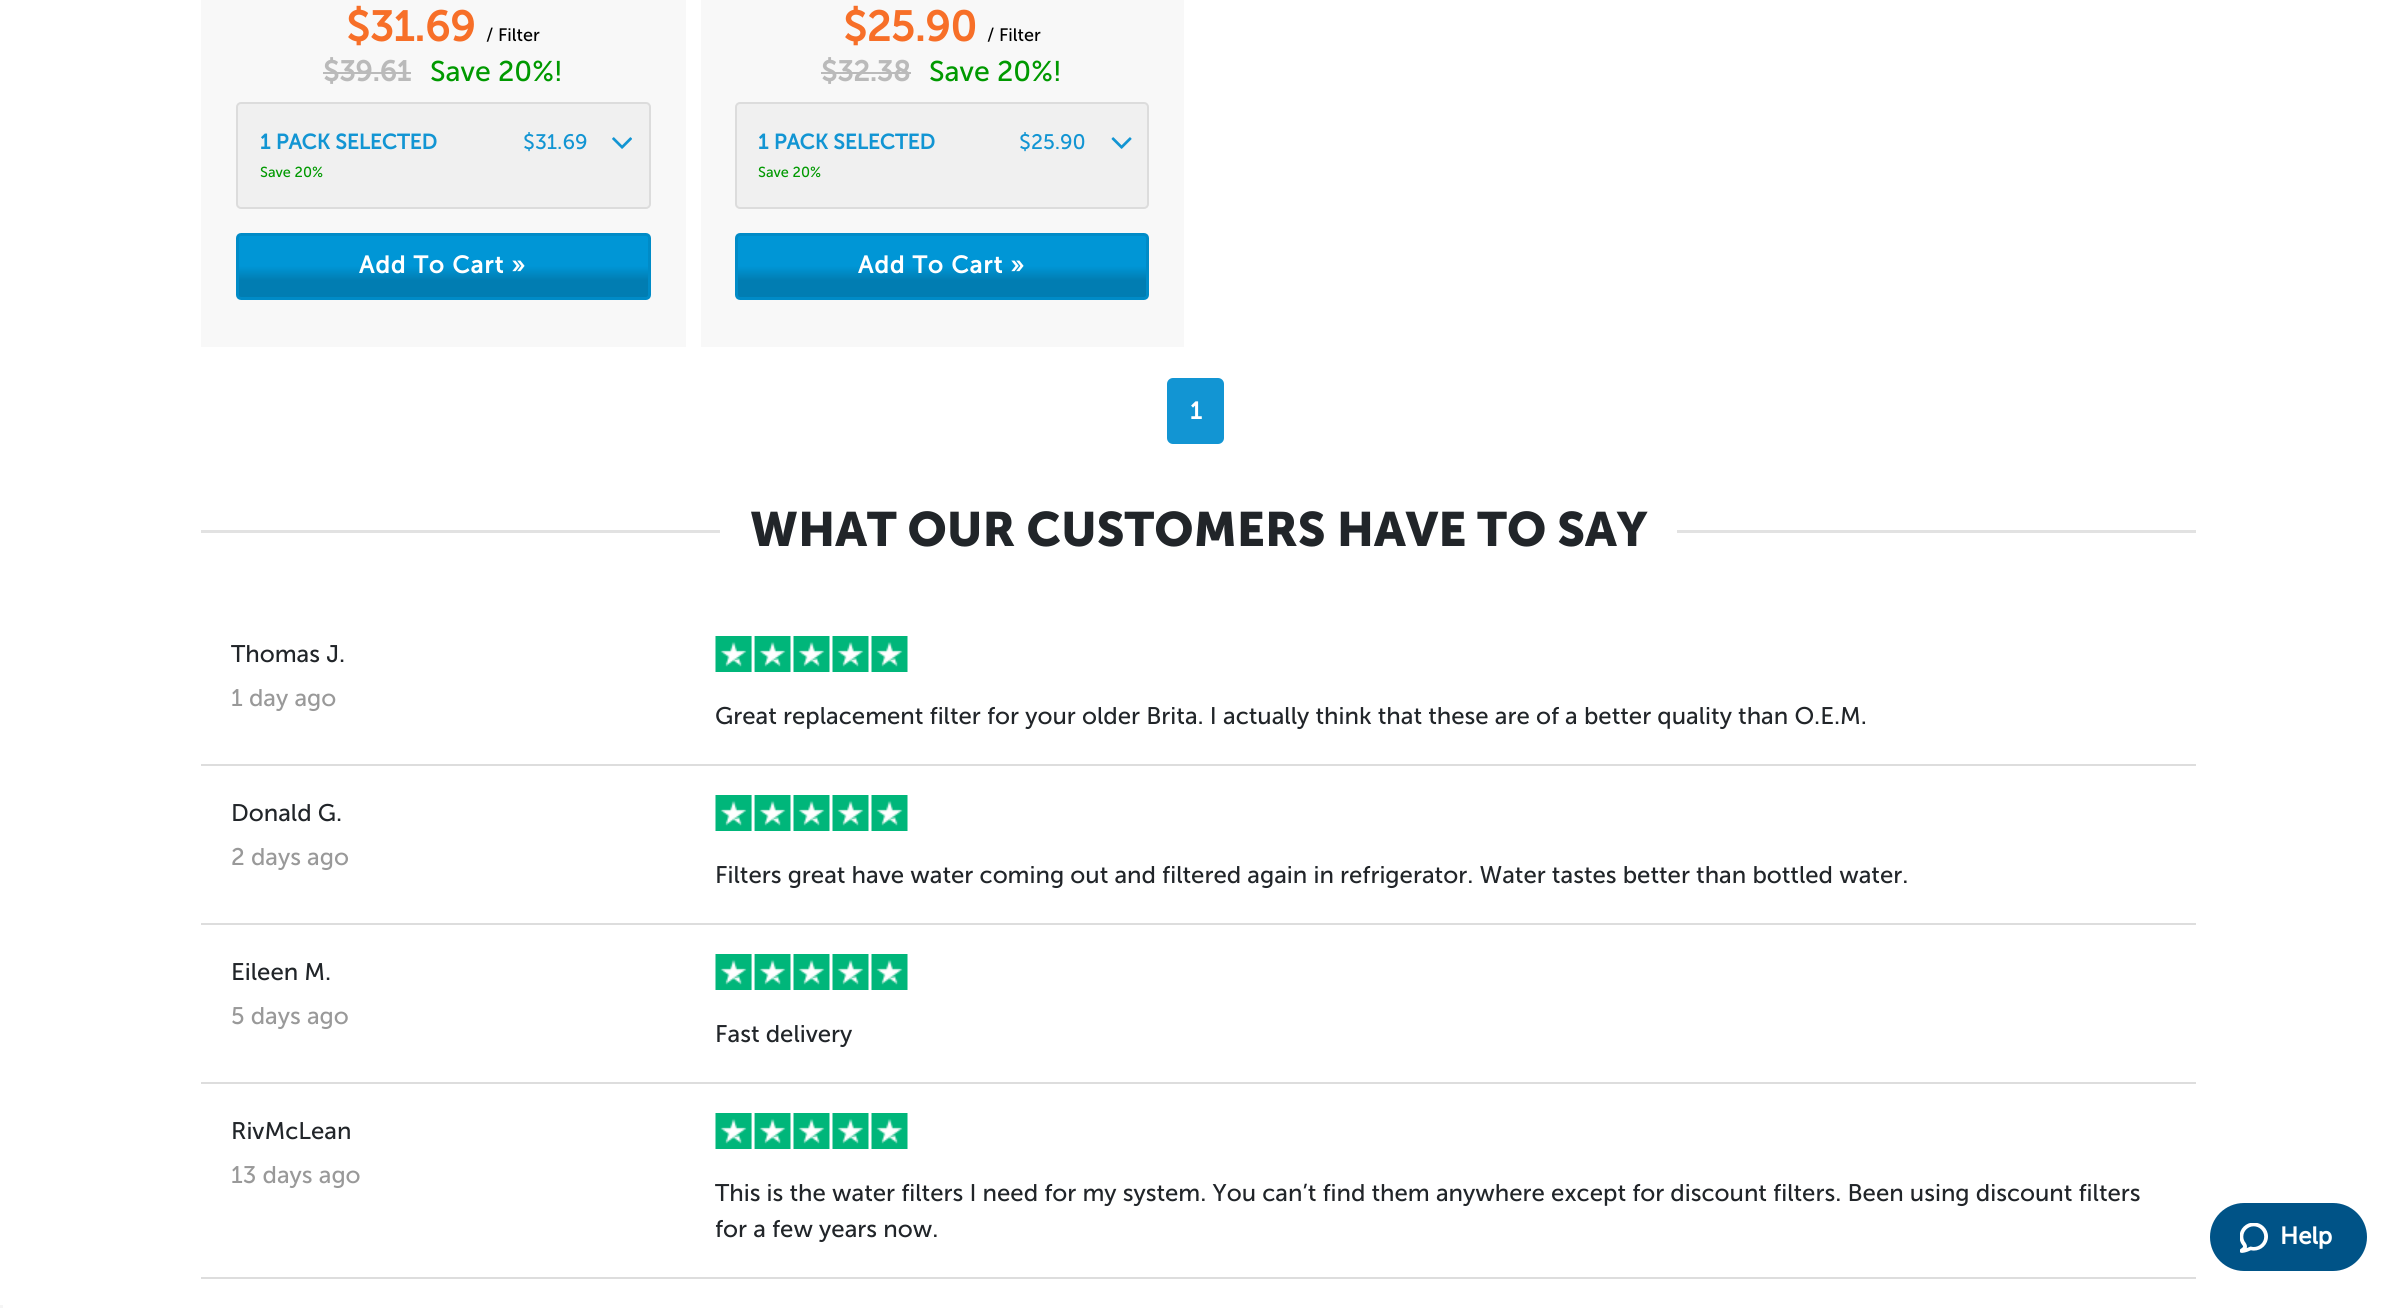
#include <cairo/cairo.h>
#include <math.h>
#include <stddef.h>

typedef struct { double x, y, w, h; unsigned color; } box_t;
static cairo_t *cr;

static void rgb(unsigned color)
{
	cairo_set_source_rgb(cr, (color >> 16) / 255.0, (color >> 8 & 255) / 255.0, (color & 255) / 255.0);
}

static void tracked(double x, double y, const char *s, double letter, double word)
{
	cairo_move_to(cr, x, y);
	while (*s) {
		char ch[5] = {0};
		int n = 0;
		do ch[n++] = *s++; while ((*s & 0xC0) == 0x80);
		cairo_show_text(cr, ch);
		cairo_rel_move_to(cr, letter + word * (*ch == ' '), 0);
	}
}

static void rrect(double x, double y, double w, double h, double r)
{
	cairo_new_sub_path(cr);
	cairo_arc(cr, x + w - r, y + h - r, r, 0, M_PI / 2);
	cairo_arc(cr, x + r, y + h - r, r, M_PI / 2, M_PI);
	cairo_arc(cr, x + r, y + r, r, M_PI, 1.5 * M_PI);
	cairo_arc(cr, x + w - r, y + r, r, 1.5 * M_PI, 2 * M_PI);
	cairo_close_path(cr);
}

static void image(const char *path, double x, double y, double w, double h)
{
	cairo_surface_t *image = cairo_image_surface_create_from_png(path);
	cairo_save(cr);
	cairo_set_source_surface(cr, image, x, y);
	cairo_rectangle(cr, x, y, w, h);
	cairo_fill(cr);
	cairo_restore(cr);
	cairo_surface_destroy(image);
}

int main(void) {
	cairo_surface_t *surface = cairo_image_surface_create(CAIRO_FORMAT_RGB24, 2396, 1308);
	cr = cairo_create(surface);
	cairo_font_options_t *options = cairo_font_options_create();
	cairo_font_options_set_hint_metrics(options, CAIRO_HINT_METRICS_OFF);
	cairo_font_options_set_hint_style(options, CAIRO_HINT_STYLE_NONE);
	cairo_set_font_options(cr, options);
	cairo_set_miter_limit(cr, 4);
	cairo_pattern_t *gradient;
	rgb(0xffffff);
	cairo_paint(cr);
	rgb(0xf8f8f8);
	cairo_rectangle(cr, 201, 0, 485, 347);
	cairo_fill(cr);
	rgb(0xbababa);
	cairo_rectangle(cr, 323, 72, 88, 2);
	cairo_fill(cr);
	rgb(0xf0f0f0);
	rrect(237, 103, 413, 105, 4);
	cairo_fill_preserve(cr);
	rgb(0xdcdcdc);
	cairo_stroke(cr);
	image("img/1.png", 612, 137, 20, 12);
	gradient = cairo_pattern_create_linear(443, 232, 443, 300);
	cairo_pattern_add_color_stop_rgba(gradient, 0, 0, 0.588, 0.839, 1);
	cairo_pattern_add_color_stop_rgba(gradient, 0.5, 0, 0.588, 0.839, 1);
	cairo_pattern_add_color_stop_rgba(gradient, 0.71, 0.004, 0.49, 0.698, 1);
	cairo_pattern_add_color_stop_rgba(gradient, 1, 0.004, 0.49, 0.698, 1);
	cairo_set_source(cr, gradient);
	cairo_pattern_destroy(gradient);
	rrect(237.5, 234.5, 412, 64, 3.5);
	cairo_fill_preserve(cr);
	rgb(0x008bc7);
	cairo_set_line_width(cr, 3);
	cairo_stroke(cr);
	rgb(0xf8f8f8);
	cairo_rectangle(cr, 701, 0, 483, 347);
	cairo_fill(cr);
	rgb(0xbababa);
	cairo_rectangle(cr, 821, 72, 90, 2);
	cairo_fill(cr);
	rgb(0xf0f0f0);
	rrect(736, 103, 412, 105, 4);
	cairo_fill_preserve(cr);
	rgb(0xdcdcdc);
	cairo_set_line_width(cr, 2);
	cairo_stroke(cr);
	image("img/2.png", 1111, 137, 21, 12);
	gradient = cairo_pattern_create_linear(942, 232, 942, 300);
	cairo_pattern_add_color_stop_rgba(gradient, 0, 0, 0.588, 0.839, 1);
	cairo_pattern_add_color_stop_rgba(gradient, 0.5, 0, 0.588, 0.839, 1);
	cairo_pattern_add_color_stop_rgba(gradient, 0.71, 0.004, 0.49, 0.698, 1);
	cairo_pattern_add_color_stop_rgba(gradient, 1, 0.004, 0.49, 0.698, 1);
	cairo_set_source(cr, gradient);
	cairo_pattern_destroy(gradient);
	rrect(736.5, 234.5, 411, 64, 3.5);
	cairo_fill_preserve(cr);
	rgb(0x008bc7);
	cairo_set_line_width(cr, 3);
	cairo_stroke(cr);
	rgb(0x1295d3);
	rrect(1168, 379, 55, 64, 5);
	cairo_fill_preserve(cr);
	cairo_set_line_width(cr, 2);
	cairo_stroke(cr);
	{
		static const box_t items[] = {
			{201, 530, 1995, 3, 0xe2e2e2},
			{720, 530, 957, 3, 0xffffff},
			{201, 764, 1995, 2, 0xdddddd},
		};
		for (size_t i = 0; i < sizeof items / sizeof *items; i++) {
			rgb(items[i].color);
			cairo_rectangle(cr, items[i].x, items[i].y, items[i].w, items[i].h);
			cairo_fill(cr);
		}
	}
	image("img/3.png", 715, 636, 193, 36);
	cairo_rectangle(cr, 201, 923, 1995, 2);
	cairo_fill(cr);
	image("img/3.png", 715, 795, 193, 36);
	cairo_rectangle(cr, 201, 1082, 1995, 2);
	cairo_fill(cr);
	image("img/3.png", 715, 954, 193, 36);
	cairo_rectangle(cr, 201, 1277, 1995, 2);
	cairo_fill(cr);
	image("img/3.png", 715, 1113, 193, 36);
	rgb(0x005387);
	rrect(2210, 1203, 157, 68, 34);
	cairo_fill(cr);
	image("img/4.png", 2240, 1223, 28, 30);
	rgb(0xf5f5f5);
	cairo_rectangle(cr, 0, 1305, 3, 3);
	cairo_fill(cr);
	cairo_select_font_face(cr, "Museo Sans", CAIRO_FONT_SLANT_NORMAL, CAIRO_FONT_WEIGHT_BOLD);
	cairo_set_font_size(cr, 42);
	rgb(0xf76f28);
	cairo_move_to(cr, 346, 41);
	cairo_show_text(cr, "$31.69");
	cairo_select_font_face(cr, "Museo Sans", CAIRO_FONT_SLANT_NORMAL, CAIRO_FONT_WEIGHT_NORMAL);
	cairo_set_font_size(cr, 18);
	rgb(0x000000);
	cairo_move_to(cr, 486, 41);
	cairo_show_text(cr, "/ Filter");
	cairo_select_font_face(cr, "Museo Sans", CAIRO_FONT_SLANT_NORMAL, CAIRO_FONT_WEIGHT_BOLD);
	cairo_set_font_size(cr, 28.5);
	rgb(0xbababa);
	cairo_move_to(cr, 323, 81);
	cairo_show_text(cr, "$39.61");
	cairo_select_font_face(cr, "Museo Sans", CAIRO_FONT_SLANT_NORMAL, CAIRO_FONT_WEIGHT_NORMAL);
	rgb(0x009900);
	cairo_move_to(cr, 430, 81);
	cairo_show_text(cr, "Save 20%!");
	cairo_select_font_face(cr, "Museo Sans", CAIRO_FONT_SLANT_NORMAL, CAIRO_FONT_WEIGHT_BOLD);
	cairo_set_font_size(cr, 21);
	rgb(0x1295d3);
	cairo_move_to(cr, 260, 149);
	cairo_show_text(cr, "1 PACK SELECTED");
	cairo_select_font_face(cr, "Museo Sans", CAIRO_FONT_SLANT_NORMAL, CAIRO_FONT_WEIGHT_NORMAL);
	cairo_move_to(cr, 523, 149);
	cairo_show_text(cr, "$31.69");
	cairo_set_font_size(cr, 14.5);
	rgb(0x009900);
	cairo_move_to(cr, 260, 177);
	cairo_show_text(cr, "Save 20%");
	cairo_select_font_face(cr, "Museo Sans", CAIRO_FONT_SLANT_NORMAL, CAIRO_FONT_WEIGHT_BOLD);
	cairo_set_font_size(cr, 24);
	rgb(0xffffff);
	tracked(359, 273, "Add To Cart »", 1.1, 0);
	cairo_set_font_size(cr, 42);
	rgb(0xf76f28);
	cairo_move_to(cr, 843, 41);
	cairo_show_text(cr, "$25.90");
	cairo_select_font_face(cr, "Museo Sans", CAIRO_FONT_SLANT_NORMAL, CAIRO_FONT_WEIGHT_NORMAL);
	cairo_set_font_size(cr, 18);
	rgb(0x000000);
	cairo_move_to(cr, 987, 41);
	cairo_show_text(cr, "/ Filter");
	cairo_select_font_face(cr, "Museo Sans", CAIRO_FONT_SLANT_NORMAL, CAIRO_FONT_WEIGHT_BOLD);
	cairo_set_font_size(cr, 28.5);
	rgb(0xbababa);
	cairo_move_to(cr, 821, 81);
	cairo_show_text(cr, "$32.38");
	cairo_select_font_face(cr, "Museo Sans", CAIRO_FONT_SLANT_NORMAL, CAIRO_FONT_WEIGHT_NORMAL);
	rgb(0x009900);
	cairo_move_to(cr, 929, 81);
	cairo_show_text(cr, "Save 20%!");
	cairo_select_font_face(cr, "Museo Sans", CAIRO_FONT_SLANT_NORMAL, CAIRO_FONT_WEIGHT_BOLD);
	cairo_set_font_size(cr, 21);
	rgb(0x1295d3);
	cairo_move_to(cr, 758, 149);
	cairo_show_text(cr, "1 PACK SELECTED");
	cairo_select_font_face(cr, "Museo Sans", CAIRO_FONT_SLANT_NORMAL, CAIRO_FONT_WEIGHT_NORMAL);
	cairo_move_to(cr, 1019, 149);
	cairo_show_text(cr, "$25.90");
	cairo_set_font_size(cr, 14.5);
	rgb(0x009900);
	cairo_move_to(cr, 758, 177);
	cairo_show_text(cr, "Save 20%");
	cairo_select_font_face(cr, "Museo Sans", CAIRO_FONT_SLANT_NORMAL, CAIRO_FONT_WEIGHT_BOLD);
	cairo_set_font_size(cr, 24);
	rgb(0xffffff);
	tracked(858, 273, "Add To Cart »", 1.1, 0);
	cairo_move_to(cr, 1190, 419);
	cairo_show_text(cr, "1");
	cairo_select_font_face(cr, "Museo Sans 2", CAIRO_FONT_SLANT_NORMAL, CAIRO_FONT_WEIGHT_BOLD);
	cairo_set_font_size(cr, 48);
	rgb(0x212529);
	cairo_move_to(cr, 750, 546);
	cairo_show_text(cr, "WHAT OUR CUSTOMERS HAVE TO SAY");
	cairo_select_font_face(cr, "Museo Sans", CAIRO_FONT_SLANT_NORMAL, CAIRO_FONT_WEIGHT_NORMAL);
	cairo_set_font_size(cr, 24);
	cairo_move_to(cr, 231, 662);
	cairo_show_text(cr, "Thomas J.");
	rgb(0x999999);
	cairo_move_to(cr, 231, 706);
	cairo_show_text(cr, "1 day ago");
	rgb(0x212529);
	cairo_move_to(cr, 715, 724);
	cairo_show_text(cr, "Great replacement filter for your older Brita. I actually think that these are of a better quality than O.E.M.");
	cairo_move_to(cr, 231, 821);
	cairo_show_text(cr, "Donald G.");
	rgb(0x999999);
	cairo_move_to(cr, 231, 865);
	cairo_show_text(cr, "2 days ago");
	rgb(0x212529);
	cairo_move_to(cr, 715, 883);
	cairo_show_text(cr, "Filters great have water coming out and filtered again in refrigerator. Water tastes better than bottled water.");
	cairo_move_to(cr, 231, 980);
	cairo_show_text(cr, "Eileen M.");
	rgb(0x999999);
	cairo_move_to(cr, 231, 1024);
	cairo_show_text(cr, "5 days ago");
	rgb(0x212529);
	cairo_move_to(cr, 715, 1042);
	cairo_show_text(cr, "Fast delivery");
	cairo_move_to(cr, 231, 1139);
	cairo_show_text(cr, "RivMcLean");
	rgb(0x999999);
	cairo_move_to(cr, 231, 1183);
	cairo_show_text(cr, "13 days ago");
	rgb(0x212529);
	cairo_move_to(cr, 715, 1201);
	cairo_show_text(cr, "This is the water filters I need for my system. You can’t find them anywhere except for discount filters. Been using discount filters");
	cairo_move_to(cr, 715, 1237);
	cairo_show_text(cr, "for a few years now.");
	cairo_select_font_face(cr, "Museo Sans", CAIRO_FONT_SLANT_NORMAL, CAIRO_FONT_WEIGHT_BOLD);
	rgb(0xffffff);
	cairo_move_to(cr, 2280, 1244);
	cairo_show_text(cr, "Help");
	cairo_surface_write_to_png(surface, "page.png");
	cairo_font_options_destroy(options);
	cairo_destroy(cr);
	cairo_surface_destroy(surface);
	return 0;
}
